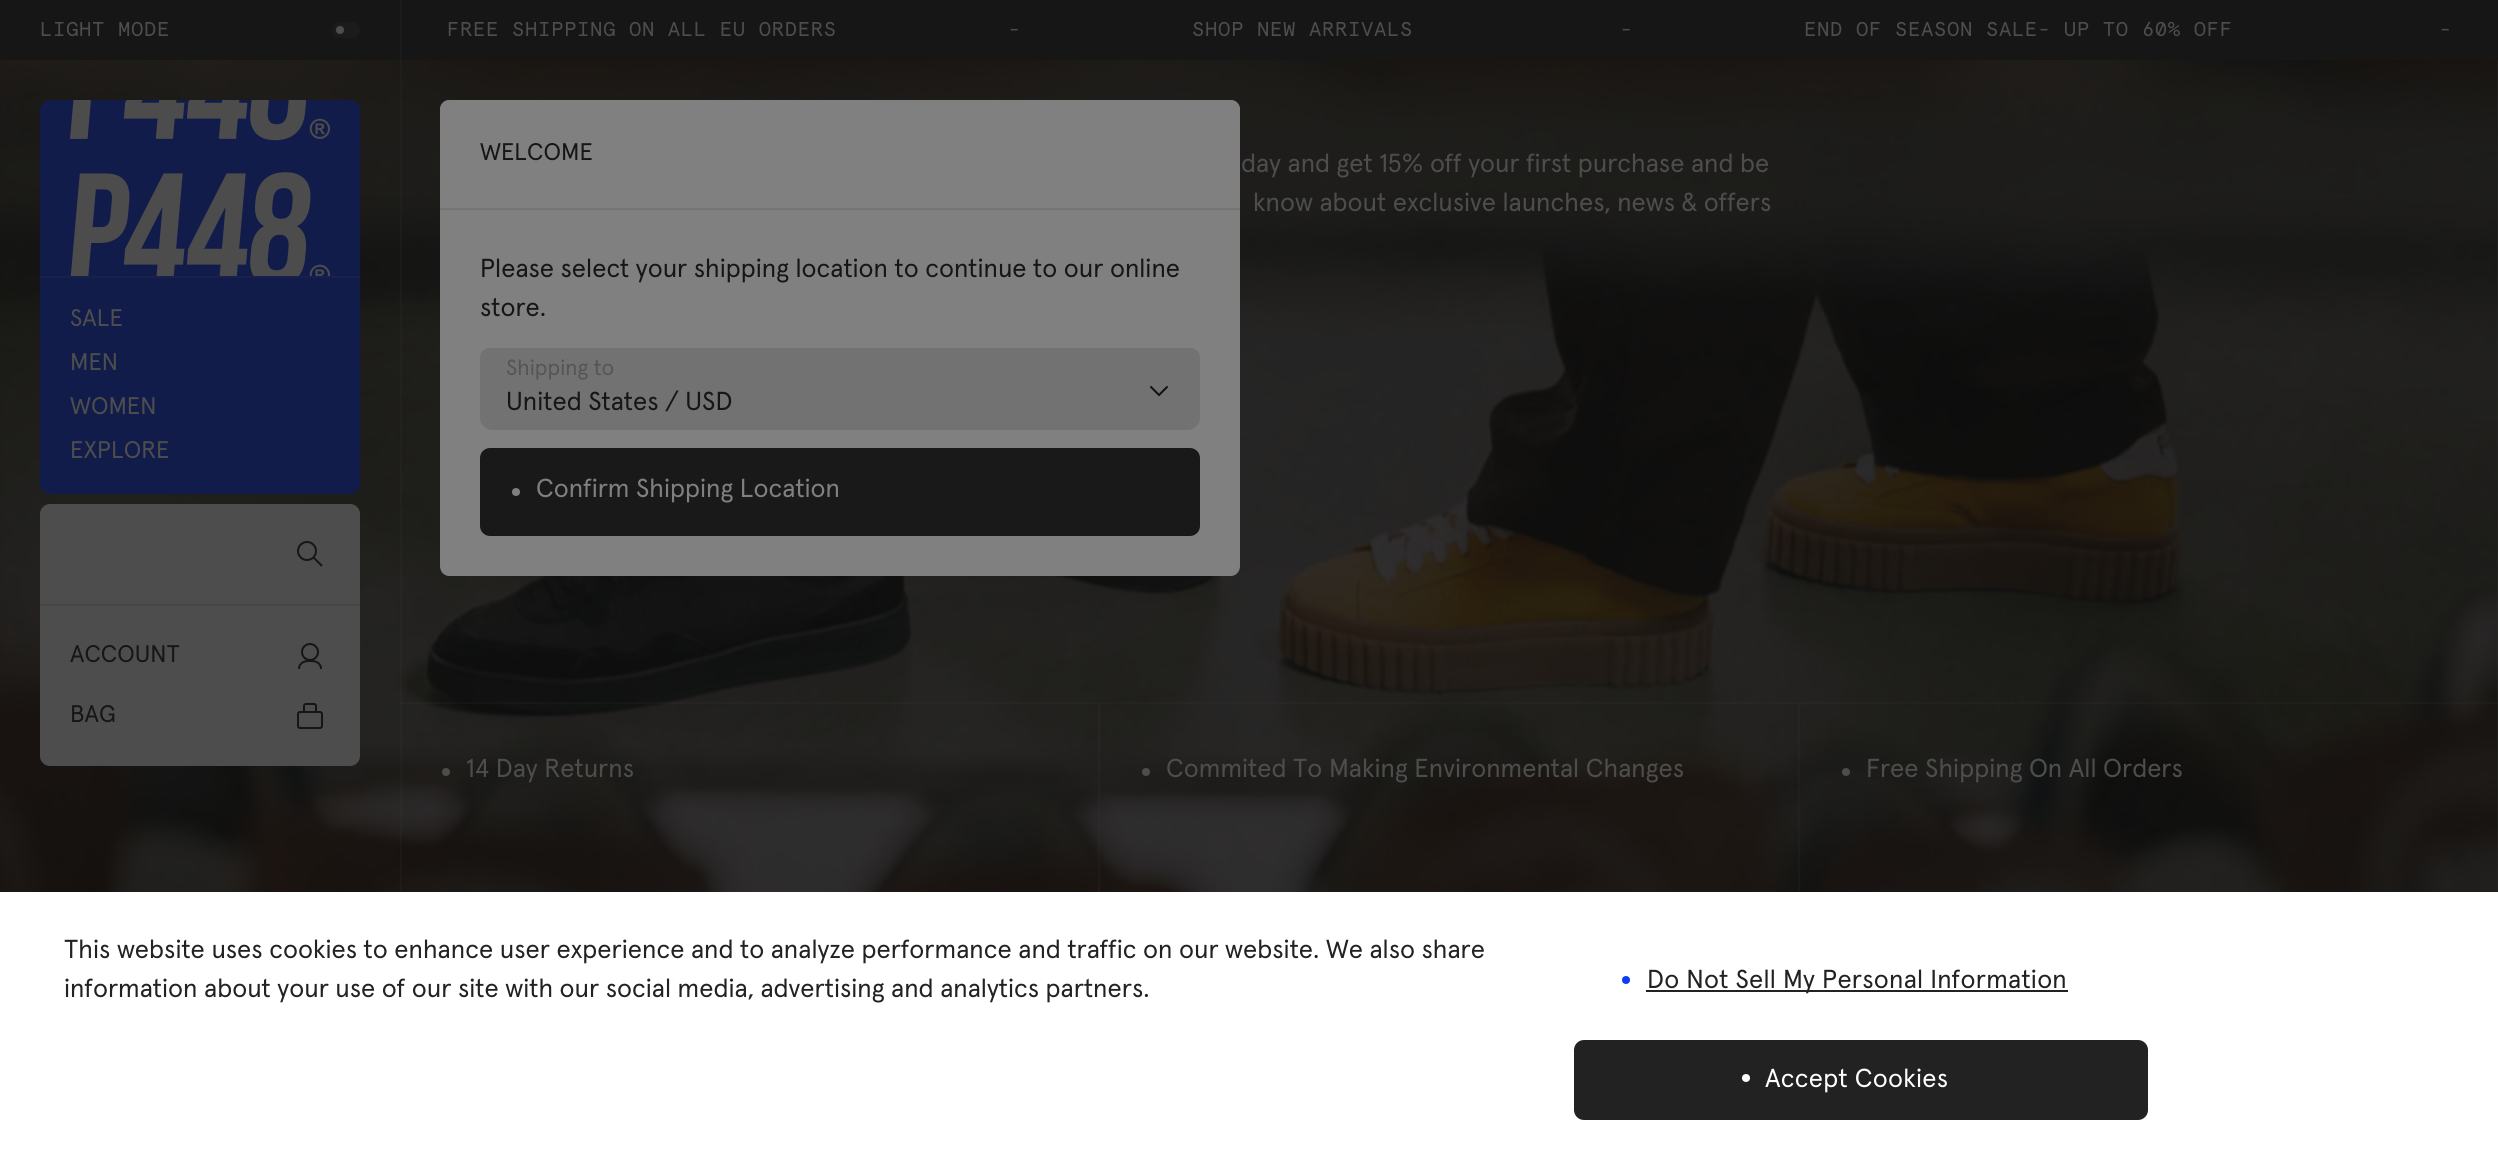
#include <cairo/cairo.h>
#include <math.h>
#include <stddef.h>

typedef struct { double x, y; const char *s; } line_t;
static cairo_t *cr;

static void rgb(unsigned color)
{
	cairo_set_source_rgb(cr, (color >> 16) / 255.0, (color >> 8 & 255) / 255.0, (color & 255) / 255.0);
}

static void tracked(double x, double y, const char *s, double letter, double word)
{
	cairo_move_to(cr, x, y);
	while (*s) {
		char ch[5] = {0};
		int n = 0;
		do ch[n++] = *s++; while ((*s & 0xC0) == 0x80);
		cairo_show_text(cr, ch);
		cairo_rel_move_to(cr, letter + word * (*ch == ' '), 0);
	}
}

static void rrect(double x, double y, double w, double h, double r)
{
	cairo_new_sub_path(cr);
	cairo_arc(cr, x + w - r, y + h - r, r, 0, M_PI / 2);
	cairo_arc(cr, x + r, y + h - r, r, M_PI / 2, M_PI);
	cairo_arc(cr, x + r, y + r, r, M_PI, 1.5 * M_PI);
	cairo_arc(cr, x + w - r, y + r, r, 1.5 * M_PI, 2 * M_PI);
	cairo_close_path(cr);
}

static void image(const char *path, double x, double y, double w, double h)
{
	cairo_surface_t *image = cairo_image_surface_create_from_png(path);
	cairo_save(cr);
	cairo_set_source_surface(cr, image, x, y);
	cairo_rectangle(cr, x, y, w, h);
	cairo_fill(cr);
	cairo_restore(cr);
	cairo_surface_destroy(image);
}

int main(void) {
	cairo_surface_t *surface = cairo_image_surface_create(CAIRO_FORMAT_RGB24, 2498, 1159);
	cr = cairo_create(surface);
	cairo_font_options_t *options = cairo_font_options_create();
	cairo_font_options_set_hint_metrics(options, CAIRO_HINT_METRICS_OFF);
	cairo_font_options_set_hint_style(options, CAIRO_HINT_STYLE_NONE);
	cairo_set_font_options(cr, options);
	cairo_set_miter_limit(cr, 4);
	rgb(0x2e2e2e);
	cairo_paint(cr);
	rgb(0x161616);
	cairo_rectangle(cr, 0, 0, 2498, 60);
	cairo_fill(cr);
	rgb(0x1b1b1b);
	cairo_rectangle(cr, 400, 0, 2, 60);
	cairo_fill(cr);
	rrect(332, 22, 28, 16, 8);
	cairo_fill(cr);
	rgb(0x4d4d4d);
	cairo_arc(cr, 340, 30, 4, 0, 2 * M_PI);
	cairo_fill(cr);
	image("img/6.png", 0, 60, 2498, 832);
	rgb(0x111c4b);
	rrect(40, 100, 320, 394, 10);
	cairo_fill(cr);
	rgb(0x17214b);
	cairo_rectangle(cr, 40, 276, 320, 2);
	cairo_fill(cr);
	image("img/1.png", 70, 100, 260, 41);
	image("img/2.png", 70, 172, 260, 104);
	rgb(0x4d4d4d);
	rrect(40, 504, 320, 262, 10);
	cairo_fill(cr);
	rgb(0x474747);
	cairo_rectangle(cr, 40, 604, 320, 2);
	cairo_fill(cr);
	cairo_arc(cr, 307, 551, 9, 0, 2 * M_PI);
	rgb(0x161616);
	cairo_stroke(cr);
	cairo_new_path(cr);
	cairo_move_to(cr, 313, 557);
	cairo_line_to(cr, 322, 566);
	cairo_set_line_join(cr, CAIRO_LINE_JOIN_ROUND);
	cairo_stroke(cr);
	image("img/3.png", 298, 643, 24, 26);
	image("img/4.png", 297, 703, 26, 26);
	rgb(0x808080);
	cairo_new_path(cr);
	cairo_move_to(cr, 450, 100);
	cairo_curve_to(cr, 444, 100, 440, 104, 440, 110);
	cairo_line_to(cr, 440, 566);
	cairo_curve_to(cr, 440, 571, 443, 575, 448, 576);
	cairo_line_to(cr, 1232, 576);
	cairo_curve_to(cr, 1237, 575, 1240, 571, 1240, 566);
	cairo_line_to(cr, 1240, 110);
	cairo_curve_to(cr, 1240, 104, 1236, 100, 1230, 100);
	cairo_close_path(cr);
	cairo_fill(cr);
	cairo_new_path(cr);
	cairo_move_to(cr, 450, 100);
	cairo_line_to(cr, 1230, 100);
	cairo_curve_to(cr, 1236, 100, 1240, 104, 1240, 110);
	cairo_line_to(cr, 1240, 210);
	cairo_line_to(cr, 440, 210);
	cairo_line_to(cr, 440, 110);
	cairo_curve_to(cr, 440, 104, 444, 100, 450, 100);
	cairo_close_path(cr);
	cairo_fill(cr);
	rgb(0x757575);
	cairo_rectangle(cr, 440, 208, 800, 2);
	cairo_fill(cr);
	rgb(0x737273);
	cairo_new_path(cr);
	cairo_move_to(cr, 490, 348);
	cairo_line_to(cr, 1190, 348);
	cairo_curve_to(cr, 1196, 348, 1200, 352, 1200, 358);
	cairo_line_to(cr, 1200, 418);
	cairo_curve_to(cr, 1200, 424, 1196, 428, 1190, 428);
	cairo_line_to(cr, 490, 428);
	cairo_curve_to(cr, 484, 428, 480, 424, 480, 418);
	cairo_line_to(cr, 480, 358);
	cairo_curve_to(cr, 480, 352, 484, 348, 490, 348);
	cairo_close_path(cr);
	cairo_fill(cr);
	rrect(482, 350, 716, 80, 10);
	cairo_fill(cr);
	image("img/5.png", 1150, 386, 18, 11);
	rgb(0x191919);
	rrect(480, 448, 720, 88, 10);
	cairo_fill(cr);
	rgb(0x808080);
	cairo_arc(cr, 516, 492, 4, 0, 2 * M_PI);
	cairo_fill(cr);
	cairo_set_source_rgba(cr, 0.302, 0.302, 0.302, 0.1);
	cairo_rectangle(cr, 400, 702, 2098, 2);
	cairo_fill(cr);
	cairo_rectangle(cr, 400, 60, 2, 832);
	cairo_fill(cr);
	cairo_rectangle(cr, 1098, 704, 2, 188);
	cairo_fill(cr);
	rgb(0x4d4d4d);
	cairo_arc(cr, 446, 772, 4, 0, 2 * M_PI);
	cairo_fill(cr);
	cairo_set_source_rgba(cr, 0.302, 0.302, 0.302, 0.1);
	cairo_rectangle(cr, 1798, 704, 2, 188);
	cairo_fill(cr);
	rgb(0x4d4d4d);
	cairo_arc(cr, 1146, 772, 4, 0, 2 * M_PI);
	cairo_fill(cr);
	cairo_arc(cr, 1846, 772, 4, 0, 2 * M_PI);
	cairo_fill(cr);
	rgb(0xffffff);
	cairo_rectangle(cr, 0, 892, 2498, 267);
	cairo_fill(cr);
	rgb(0x0e3cf6);
	cairo_arc(cr, 1626, 980, 4, 0, 2 * M_PI);
	cairo_fill(cr);
	rgb(0x222222);
	cairo_rectangle(cr, 1646, 990, 422, 2);
	cairo_fill(cr);
	rrect(1574, 1040, 574, 80, 10);
	cairo_fill(cr);
	rgb(0xffffff);
	cairo_arc(cr, 1746, 1078, 4, 0, 2 * M_PI);
	cairo_fill(cr);
	cairo_select_font_face(cr, "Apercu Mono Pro", CAIRO_FONT_SLANT_NORMAL, CAIRO_FONT_WEIGHT_NORMAL);
	cairo_set_font_size(cr, 20);
	rgb(0x4d4d4d);
	{
		static const line_t items[] = {
			{40, 36, "LIGHT MODE"},
			{447, 36, "FREE SHIPPING ON ALL EU ORDERS"},
			{1008, 36, "-"},
			{1192, 36, "SHOP NEW ARRIVALS"},
			{1620, 36, "-"},
			{1804, 36, "END OF SEASON SALE- UP TO 60% OFF"},
			{2439, 36, "-"},
		};
		for (size_t i = 0; i < sizeof items / sizeof *items; i++) {
			tracked(items[i].x, items[i].y, items[i].s, 0.6, 0);
		}
	}
	cairo_select_font_face(cr, "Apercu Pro", CAIRO_FONT_SLANT_NORMAL, CAIRO_FONT_WEIGHT_NORMAL);
	cairo_set_font_size(cr, 24);
	{
		static const line_t items[] = {
			{70, 326, "SALE"},
			{70, 370, "MEN"},
			{70, 414, "WOMEN"},
			{70, 458, "EXPLORE"},
		};
		for (size_t i = 0; i < sizeof items / sizeof *items; i++) {
			cairo_move_to(cr, items[i].x, items[i].y);
			cairo_show_text(cr, items[i].s);
		}
	}
	rgb(0x161616);
	{
		static const line_t items[] = {
			{70, 662, "ACCOUNT"},
			{70, 722, "BAG"},
			{480, 160, "WELCOME"},
		};
		for (size_t i = 0; i < sizeof items / sizeof *items; i++) {
			cairo_move_to(cr, items[i].x, items[i].y);
			cairo_show_text(cr, items[i].s);
		}
	}
	cairo_set_font_size(cr, 26);
	cairo_move_to(cr, 480, 277);
	cairo_show_text(cr, "Please select your shipping location to continue to our online");
	cairo_move_to(cr, 480, 316);
	cairo_show_text(cr, "store.");
	cairo_set_font_size(cr, 22);
	rgb(0x565556);
	cairo_move_to(cr, 506, 375);
	cairo_show_text(cr, "Shipping to");
	cairo_set_font_size(cr, 26);
	rgb(0x161616);
	cairo_move_to(cr, 506, 410);
	cairo_show_text(cr, "United States / USD");
	rgb(0x808080);
	cairo_move_to(cr, 536, 497);
	cairo_show_text(cr, "Confirm Shipping Location");
	rgb(0x4d4d4d);
	{
		static const line_t items[] = {
			{1241, 172, "day and get 15% off your first purchase and be"},
			{1253, 211, "know about exclusive launches, news & offers"},
			{466, 777, "14 Day Returns"},
			{1166, 777, "Commited To Making Environmental Changes"},
			{1866, 777, "Free Shipping On All Orders"},
		};
		for (size_t i = 0; i < sizeof items / sizeof *items; i++) {
			cairo_move_to(cr, items[i].x, items[i].y);
			cairo_show_text(cr, items[i].s);
		}
	}
	cairo_set_font_size(cr, 26.02);
	rgb(0x222222);
	cairo_move_to(cr, 64, 958);
	cairo_show_text(cr, "This website uses cookies to enhance user experience and to analyze performance and traffic on our website. We also share");
	cairo_move_to(cr, 64, 997);
	cairo_show_text(cr, "information about your use of our site with our social media, advertising and analytics partners.");
	cairo_set_font_size(cr, 26);
	tracked(1647, 988, "Do Not Sell My Personal Information", 0.25, 0);
	rgb(0xffffff);
	tracked(1765, 1087, "Accept Cookies", 0.25, 0);
	cairo_surface_write_to_png(surface, "page.png");
	cairo_font_options_destroy(options);
	cairo_destroy(cr);
	cairo_surface_destroy(surface);
	return 0;
}
